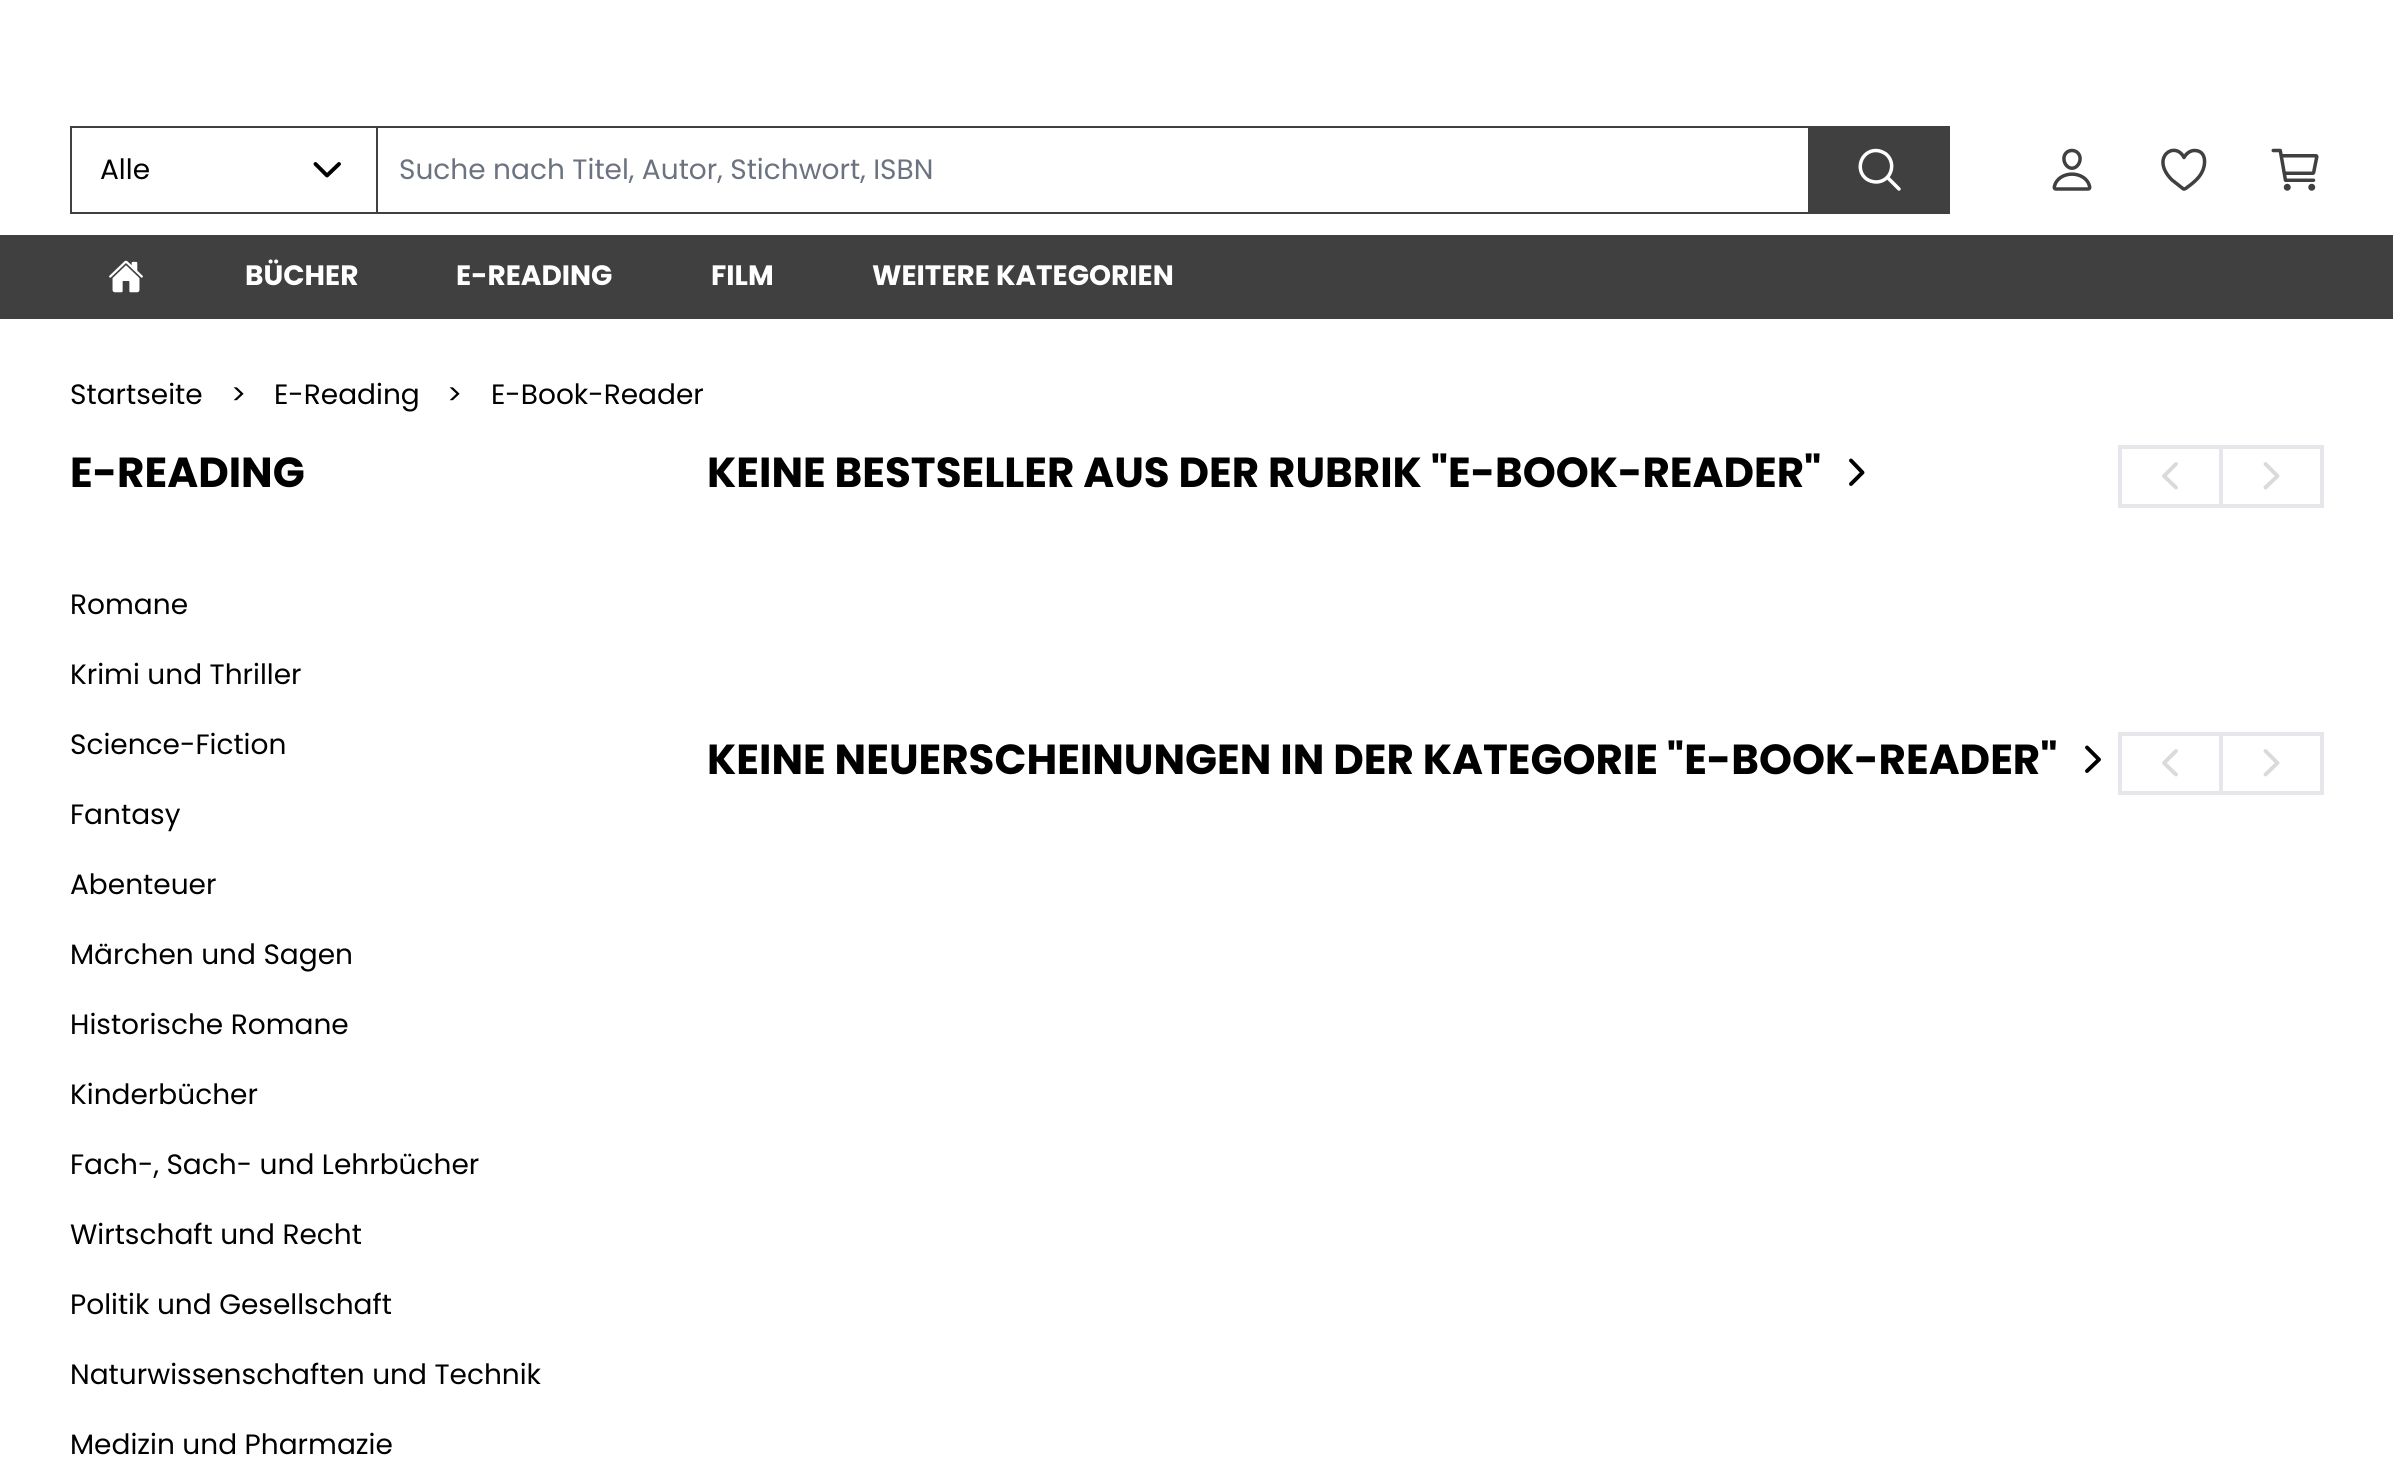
#include <cairo/cairo.h>
#include <math.h>
#include <stddef.h>

typedef struct { double x, y; const char *s; } line_t;
static cairo_t *cr;

static void rgb(unsigned color)
{
	cairo_set_source_rgb(cr, (color >> 16) / 255.0, (color >> 8 & 255) / 255.0, (color & 255) / 255.0);
}

static void image(const char *path, double x, double y, double w, double h)
{
	cairo_surface_t *image = cairo_image_surface_create_from_png(path);
	cairo_save(cr);
	cairo_set_source_surface(cr, image, x, y);
	cairo_rectangle(cr, x, y, w, h);
	cairo_fill(cr);
	cairo_restore(cr);
	cairo_surface_destroy(image);
}

int main(void) {
	cairo_surface_t *surface = cairo_image_surface_create(CAIRO_FORMAT_RGB24, 2393, 1464);
	cr = cairo_create(surface);
	cairo_font_options_t *options = cairo_font_options_create();
	cairo_font_options_set_hint_metrics(options, CAIRO_HINT_METRICS_OFF);
	cairo_font_options_set_hint_style(options, CAIRO_HINT_STYLE_NONE);
	cairo_set_font_options(cr, options);
	cairo_set_miter_limit(cr, 4);
	rgb(0xffffff);
	cairo_paint(cr);
	cairo_rectangle(cr, 377, 127, 1432, 86);
	rgb(0x404040);
	cairo_stroke(cr);
	cairo_rectangle(cr, 71, 127, 306, 86);
	cairo_stroke(cr);
	cairo_new_path(cr);
	cairo_move_to(cr, 315.5, 164);
	cairo_line_to(cr, 327, 175.5);
	cairo_line_to(cr, 339, 164);
	rgb(0x000000);
	cairo_set_line_width(cr, 3.9);
	cairo_set_line_cap(cr, CAIRO_LINE_CAP_ROUND);
	cairo_set_line_join(cr, CAIRO_LINE_JOIN_ROUND);
	cairo_stroke(cr);
	rgb(0x404040);
	cairo_rectangle(cr, 1810, 126, 140, 88);
	cairo_fill(cr);
	cairo_new_path(cr);
	cairo_move_to(cr, 1876, 150.5);
	cairo_curve_to(cr, 1861, 150.5, 1854.5, 170, 1866.5, 179);
	cairo_curve_to(cr, 1869.5, 181, 1873, 182, 1876.5, 182);
	cairo_curve_to(cr, 1891, 181.5, 1897, 163.5, 1886, 154);
	cairo_curve_to(cr, 1883, 152, 1879.5, 150.5, 1876, 150.5);
	cairo_close_path(cr);
	rgb(0xffffff);
	cairo_set_line_width(cr, 3.5);
	cairo_set_line_cap(cr, CAIRO_LINE_CAP_BUTT);
	cairo_set_line_join(cr, CAIRO_LINE_JOIN_MITER);
	cairo_stroke(cr);
	cairo_new_path(cr);
	cairo_move_to(cr, 1888, 178);
	cairo_line_to(cr, 1899, 189);
	cairo_set_line_cap(cr, CAIRO_LINE_CAP_ROUND);
	cairo_stroke(cr);
	image("img/1.png", 2052, 148, 40, 43);
	cairo_new_path(cr);
	cairo_move_to(cr, 2194.5, 150.5);
	cairo_curve_to(cr, 2187.5, 150.5, 2184, 157.5, 2184, 157.5);
	cairo_curve_to(cr, 2175, 140, 2149.5, 157.5, 2172, 180);
	cairo_line_to(cr, 2183.5, 189);
	cairo_curve_to(cr, 2185.5, 189.5, 2188.5, 186, 2189, 186);
	cairo_curve_to(cr, 2193.5, 182.5, 2198.5, 178.5, 2201.5, 173);
	cairo_curve_to(cr, 2206, 165.5, 2207, 150.5, 2194.5, 150.5);
	cairo_close_path(cr);
	rgb(0x404040);
	cairo_set_line_join(cr, CAIRO_LINE_JOIN_ROUND);
	cairo_stroke(cr);
	image("img/2.png", 2271, 148, 48, 43);
	cairo_rectangle(cr, 0, 235, 2393, 84);
	cairo_fill(cr);
	image("img/3.png", 109, 260, 34, 33);
	cairo_new_path(cr);
	cairo_move_to(cr, 1851, 460.5);
	cairo_line_to(cr, 1862.5, 472.5);
	cairo_line_to(cr, 1851, 484);
	rgb(0x000000);
	cairo_set_line_width(cr, 3.9);
	cairo_stroke(cr);
	cairo_rectangle(cr, 2120, 447, 202, 59);
	rgb(0xe5e7eb);
	cairo_set_line_width(cr, 4);
	cairo_set_line_cap(cr, CAIRO_LINE_CAP_BUTT);
	cairo_set_line_join(cr, CAIRO_LINE_JOIN_MITER);
	cairo_stroke(cr);
	cairo_rectangle(cr, 2219, 448, 4, 56);
	cairo_fill(cr);
	cairo_new_path(cr);
	cairo_move_to(cr, 2176, 464);
	cairo_line_to(cr, 2164, 476);
	cairo_line_to(cr, 2176, 487.5);
	rgb(0xd9dada);
	cairo_set_line_width(cr, 3.9);
	cairo_set_line_cap(cr, CAIRO_LINE_CAP_ROUND);
	cairo_set_line_join(cr, CAIRO_LINE_JOIN_ROUND);
	cairo_stroke(cr);
	cairo_new_path(cr);
	cairo_move_to(cr, 2265.5, 464);
	cairo_line_to(cr, 2277.5, 476);
	cairo_line_to(cr, 2265.5, 487.5);
	cairo_stroke(cr);
	cairo_new_path(cr);
	cairo_move_to(cr, 2087, 747.5);
	cairo_line_to(cr, 2099, 759.5);
	cairo_line_to(cr, 2087, 771);
	rgb(0x000000);
	cairo_stroke(cr);
	cairo_rectangle(cr, 2120, 734, 202, 59);
	rgb(0xe5e7eb);
	cairo_set_line_width(cr, 4);
	cairo_set_line_cap(cr, CAIRO_LINE_CAP_BUTT);
	cairo_set_line_join(cr, CAIRO_LINE_JOIN_MITER);
	cairo_stroke(cr);
	cairo_rectangle(cr, 2219, 735, 4, 56);
	cairo_fill(cr);
	cairo_new_path(cr);
	cairo_move_to(cr, 2176, 751);
	cairo_line_to(cr, 2164, 763);
	cairo_line_to(cr, 2176, 774.5);
	rgb(0xd9dada);
	cairo_set_line_width(cr, 3.9);
	cairo_set_line_cap(cr, CAIRO_LINE_CAP_ROUND);
	cairo_set_line_join(cr, CAIRO_LINE_JOIN_ROUND);
	cairo_stroke(cr);
	cairo_new_path(cr);
	cairo_move_to(cr, 2265.5, 751);
	cairo_line_to(cr, 2277.5, 763);
	cairo_line_to(cr, 2265.5, 774.5);
	cairo_stroke(cr);
	cairo_select_font_face(cr, "Poppins", CAIRO_FONT_SLANT_NORMAL, CAIRO_FONT_WEIGHT_NORMAL);
	cairo_set_font_size(cr, 28);
	rgb(0x000000);
	cairo_move_to(cr, 100, 179);
	cairo_show_text(cr, "Alle");
	rgb(0x6b7280);
	cairo_move_to(cr, 399, 179);
	cairo_show_text(cr, "Suche nach Titel, Autor, Stichwort, ISBN");
	cairo_select_font_face(cr, "Poppins", CAIRO_FONT_SLANT_NORMAL, CAIRO_FONT_WEIGHT_BOLD);
	rgb(0xffffff);
	{
		static const line_t items[] = {
			{245, 285, "BÜCHER"},
			{456, 285, "E-READING"},
			{711, 285, "FILM"},
			{872, 285, "WEITERE KATEGORIEN"},
		};
		for (size_t i = 0; i < sizeof items / sizeof *items; i++) {
			cairo_move_to(cr, items[i].x, items[i].y);
			cairo_show_text(cr, items[i].s);
		}
	}
	cairo_select_font_face(cr, "Poppins", CAIRO_FONT_SLANT_NORMAL, CAIRO_FONT_WEIGHT_NORMAL);
	rgb(0x000000);
	{
		static const line_t items[] = {
			{70, 404, "Startseite"},
			{231, 404, ">"},
			{274, 404, "E-Reading"},
			{447, 404, ">"},
			{491, 404, "E-Book-Reader"},
		};
		for (size_t i = 0; i < sizeof items / sizeof *items; i++) {
			cairo_move_to(cr, items[i].x, items[i].y);
			cairo_show_text(cr, items[i].s);
		}
	}
	cairo_select_font_face(cr, "Poppins", CAIRO_FONT_SLANT_NORMAL, CAIRO_FONT_WEIGHT_BOLD);
	cairo_set_font_size(cr, 42);
	cairo_move_to(cr, 70, 487);
	cairo_show_text(cr, "E-READING");
	cairo_select_font_face(cr, "Poppins", CAIRO_FONT_SLANT_NORMAL, CAIRO_FONT_WEIGHT_NORMAL);
	cairo_set_font_size(cr, 28);
	{
		static const line_t items[] = {
			{70, 614, "Romane"},
			{70, 684, "Krimi und Thriller"},
			{70, 754, "Science-Fiction"},
			{70, 824, "Fantasy"},
			{70, 894, "Abenteuer"},
			{70, 964, "Märchen und Sagen"},
			{70, 1034, "Historische Romane"},
			{70, 1104, "Kinderbücher"},
			{70, 1174, "Fach-, Sach- und Lehrbücher"},
			{70, 1244, "Wirtschaft und Recht"},
			{70, 1314, "Politik und Gesellschaft"},
			{70, 1384, "Naturwissenschaften und Technik"},
			{70, 1454, "Medizin und Pharmazie"},
		};
		for (size_t i = 0; i < sizeof items / sizeof *items; i++) {
			cairo_move_to(cr, items[i].x, items[i].y);
			cairo_show_text(cr, items[i].s);
		}
	}
	cairo_select_font_face(cr, "Poppins", CAIRO_FONT_SLANT_NORMAL, CAIRO_FONT_WEIGHT_BOLD);
	cairo_set_font_size(cr, 42);
	cairo_move_to(cr, 707, 487);
	cairo_show_text(cr, "KEINE BESTSELLER AUS DER RUBRIK \"E-BOOK-READER\"");
	cairo_move_to(cr, 707, 774);
	cairo_show_text(cr, "KEINE NEUERSCHEINUNGEN IN DER KATEGORIE \"E-BOOK-READER\"");
	cairo_surface_write_to_png(surface, "page.png");
	cairo_font_options_destroy(options);
	cairo_destroy(cr);
	cairo_surface_destroy(surface);
	return 0;
}
